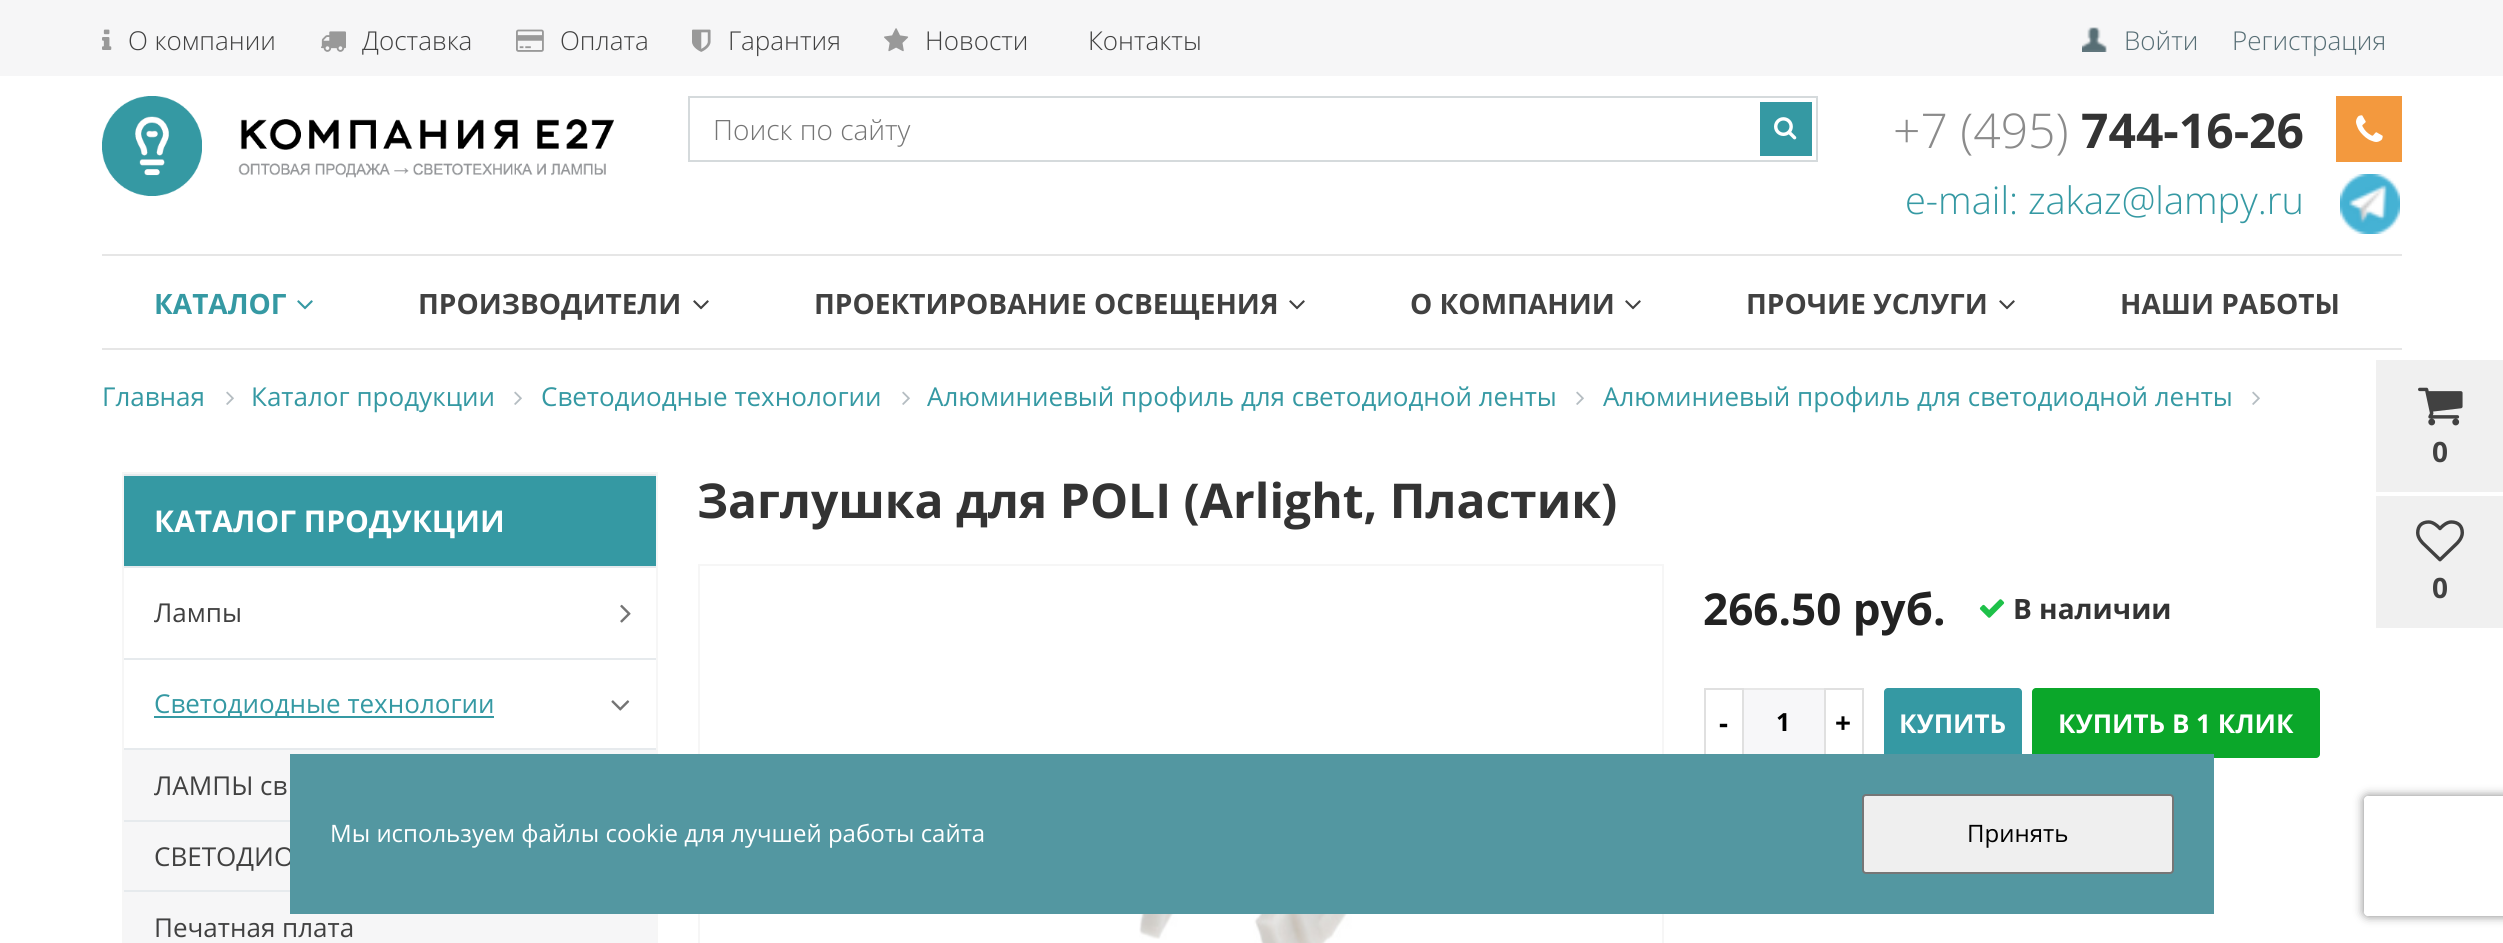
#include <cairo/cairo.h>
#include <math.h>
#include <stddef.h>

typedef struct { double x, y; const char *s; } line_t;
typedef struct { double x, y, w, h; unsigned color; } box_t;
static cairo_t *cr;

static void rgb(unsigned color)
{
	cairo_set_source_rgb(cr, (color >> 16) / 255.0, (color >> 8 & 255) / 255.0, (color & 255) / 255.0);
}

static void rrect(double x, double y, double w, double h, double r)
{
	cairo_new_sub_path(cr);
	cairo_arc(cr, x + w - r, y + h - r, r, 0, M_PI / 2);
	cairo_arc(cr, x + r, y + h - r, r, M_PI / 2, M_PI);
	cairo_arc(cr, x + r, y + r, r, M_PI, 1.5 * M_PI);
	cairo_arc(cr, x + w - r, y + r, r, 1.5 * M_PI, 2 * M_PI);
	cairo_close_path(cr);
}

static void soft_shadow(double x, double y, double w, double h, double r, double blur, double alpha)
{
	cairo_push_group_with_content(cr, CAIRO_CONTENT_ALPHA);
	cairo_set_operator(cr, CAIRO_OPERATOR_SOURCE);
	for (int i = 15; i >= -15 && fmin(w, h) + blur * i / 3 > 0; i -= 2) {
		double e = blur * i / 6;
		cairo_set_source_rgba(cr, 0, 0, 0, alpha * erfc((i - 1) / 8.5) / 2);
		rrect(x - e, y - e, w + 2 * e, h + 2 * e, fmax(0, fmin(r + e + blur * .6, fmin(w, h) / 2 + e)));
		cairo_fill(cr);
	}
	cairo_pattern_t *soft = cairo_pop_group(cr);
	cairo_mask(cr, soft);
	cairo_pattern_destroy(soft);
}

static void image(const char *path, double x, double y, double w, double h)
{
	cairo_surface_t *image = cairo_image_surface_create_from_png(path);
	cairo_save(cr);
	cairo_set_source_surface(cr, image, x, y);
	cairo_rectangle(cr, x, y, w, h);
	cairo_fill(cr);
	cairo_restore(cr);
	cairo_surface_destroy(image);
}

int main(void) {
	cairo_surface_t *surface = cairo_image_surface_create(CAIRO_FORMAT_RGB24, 2503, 943);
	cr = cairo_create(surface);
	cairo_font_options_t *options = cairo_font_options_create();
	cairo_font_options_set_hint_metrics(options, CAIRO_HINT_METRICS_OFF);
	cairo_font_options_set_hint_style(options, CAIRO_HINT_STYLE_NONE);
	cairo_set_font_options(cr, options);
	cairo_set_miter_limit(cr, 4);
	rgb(0xffffff);
	cairo_paint(cr);
	rgb(0xf6f6f7);
	cairo_rectangle(cr, 0, 0, 2503, 76);
	cairo_fill(cr);
	image("img/1.png", 2082, 27, 25, 25);
	image("img/2.png", 102, 29, 10, 21);
	image("img/3.png", 321, 31, 25, 21);
	image("img/4.png", 516, 29, 28, 23);
	image("img/5.png", 692, 29, 19, 23);
	image("img/6.png", 884, 28, 25, 24);
	rgb(0xf0f0f0);
	cairo_rectangle(cr, 2376, 360, 127, 132);
	cairo_fill(cr);
	image("img/7.png", 2418, 387, 45, 39);
	cairo_rectangle(cr, 2376, 496, 127, 132);
	cairo_fill(cr);
	image("img/8.png", 2416, 520, 48, 42);
	image("img/9.png", 102, 96, 100, 100);
	image("img/10.png", 238, 119, 376, 59);
	cairo_rectangle(cr, 689, 97, 1128, 64);
	rgb(0xd5dadc);
	cairo_stroke(cr);
	rgb(0x3599a3);
	cairo_rectangle(cr, 1760, 102, 52, 54);
	cairo_fill(cr);
	image("img/11.png", 1774, 117, 23, 23);
	image("img/12.png", 2340, 174, 60, 60);
	rgb(0xf3993e);
	cairo_rectangle(cr, 2336, 96, 66, 66);
	cairo_fill(cr);
	image("img/13.png", 2356, 115, 27, 27);
	rgb(0xe6e6e6);
	cairo_rectangle(cr, 102, 254, 2300, 2);
	cairo_fill(cr);
	cairo_rectangle(cr, 102, 348, 2300, 2);
	cairo_fill(cr);
	image("img/14.png", 297, 300, 16, 10);
	image("img/15.png", 693, 300, 16, 10);
	image("img/15.png", 1289, 300, 16, 10);
	image("img/15.png", 1625, 300, 16, 10);
	image("img/15.png", 1999, 300, 16, 10);
	image("img/16.png", 226, 391, 8, 14);
	image("img/16.png", 514, 391, 8, 14);
	image("img/16.png", 902, 391, 8, 14);
	image("img/16.png", 1576, 391, 8, 14);
	image("img/16.png", 2252, 391, 8, 14);
	cairo_rectangle(cr, 123, 473, 534, 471);
	rgb(0xf6f6f6);
	cairo_stroke(cr);
	{
		static const box_t items[] = {
			{124, 476, 532, 90, 0x3599a3},
			{124, 474, 532, 2, 0xe6eaed},
			{124, 566, 532, 2, 0xe6eaed},
		};
		for (size_t i = 0; i < sizeof items / sizeof *items; i++) {
			rgb(items[i].color);
			cairo_rectangle(cr, items[i].x, items[i].y, items[i].w, items[i].h);
			cairo_fill(cr);
		}
	}
	image("img/17.png", 620, 604, 11, 19);
	cairo_rectangle(cr, 124, 658, 532, 2);
	cairo_fill(cr);
	rgb(0x3599a3);
	cairo_rectangle(cr, 154, 716, 340, 2);
	cairo_fill(cr);
	image("img/18.png", 611, 700, 19, 11);
	{
		static const box_t items[] = {
			{124, 750, 532, 193, 0xf6f6f7},
			{124, 748, 532, 2, 0xe6eaed},
			{124, 820, 166, 2, 0xe6eaed},
			{124, 890, 166, 2, 0xe6eaed},
		};
		for (size_t i = 0; i < sizeof items / sizeof *items; i++) {
			rgb(items[i].color);
			cairo_rectangle(cr, items[i].x, items[i].y, items[i].w, items[i].h);
			cairo_fill(cr);
		}
	}
	cairo_rectangle(cr, 699, 565, 964, 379);
	rgb(0xf6f6f6);
	cairo_stroke(cr);
	image("img/19.png", 1139, 914, 256, 29);
	image("img/20.png", 1979, 599, 26, 19);
	cairo_rectangle(cr, 1705, 689, 38, 66);
	rgb(0xe0e0e0);
	cairo_stroke(cr);
	rgb(0xf7f7f9);
	cairo_rectangle(cr, 1744, 690, 80, 64);
	cairo_fill(cr);
	rgb(0xe7e7e7);
	cairo_rectangle(cr, 1744, 688, 80, 2);
	cairo_fill(cr);
	cairo_rectangle(cr, 1825, 689, 38, 66);
	rgb(0xe0e0e0);
	cairo_stroke(cr);
	rgb(0x3599a3);
	rrect(1884, 688, 138, 70, 4);
	cairo_fill(cr);
	rgb(0x0ba72a);
	rrect(2032, 688, 288, 70, 4);
	cairo_fill(cr);
	cairo_save(cr);
	cairo_set_fill_rule(cr, CAIRO_FILL_RULE_EVEN_ODD);
	cairo_new_path(cr);
	cairo_move_to(cr, 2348, 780);
	cairo_line_to(cr, 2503, 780);
	cairo_line_to(cr, 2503, 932);
	cairo_line_to(cr, 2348, 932);
	cairo_close_path(cr);
	cairo_move_to(cr, 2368, 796);
	cairo_line_to(cr, 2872, 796);
	cairo_curve_to(cr, 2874, 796, 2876, 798, 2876, 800);
	cairo_line_to(cr, 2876, 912);
	cairo_curve_to(cr, 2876, 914, 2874, 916, 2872, 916);
	cairo_line_to(cr, 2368, 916);
	cairo_curve_to(cr, 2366, 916, 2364, 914, 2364, 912);
	cairo_line_to(cr, 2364, 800);
	cairo_curve_to(cr, 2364, 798, 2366, 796, 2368, 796);
	cairo_close_path(cr);
	cairo_clip(cr);
	rgb(0x808080);
	soft_shadow(2364, 796, 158, 120, 4, 5, 1);
	cairo_restore(cr);
	cairo_select_font_face(cr, "Open Sans Light", CAIRO_FONT_SLANT_NORMAL, CAIRO_FONT_WEIGHT_NORMAL);
	cairo_set_font_size(cr, 26);
	rgb(0x576e75);
	cairo_move_to(cr, 2124, 50);
	cairo_show_text(cr, "Войти");
	cairo_move_to(cr, 2232, 50);
	cairo_show_text(cr, "Регистрация");
	rgb(0x414141);
	{
		static const line_t items[] = {
			{128, 50, "О компании"},
			{362, 50, "Доставка"},
			{560, 50, "Оплата"},
			{728, 50, "Гарантия"},
			{925, 50, "Новости"},
			{1088, 50, "Контакты"},
		};
		for (size_t i = 0; i < sizeof items / sizeof *items; i++) {
			cairo_move_to(cr, items[i].x, items[i].y);
			cairo_show_text(cr, items[i].s);
		}
	}
	cairo_select_font_face(cr, "Open Sans", CAIRO_FONT_SLANT_NORMAL, CAIRO_FONT_WEIGHT_BOLD);
	cairo_set_font_size(cr, 28);
	cairo_move_to(cr, 2432, 462);
	cairo_show_text(cr, "0");
	cairo_move_to(cr, 2432, 598);
	cairo_show_text(cr, "0");
	cairo_select_font_face(cr, "Open Sans Light", CAIRO_FONT_SLANT_NORMAL, CAIRO_FONT_WEIGHT_NORMAL);
	rgb(0x757575);
	cairo_move_to(cr, 713, 140);
	cairo_show_text(cr, "Поиск по сайту");
	cairo_set_font_size(cr, 48);
	rgb(0x8b8b8b);
	cairo_move_to(cr, 1893, 148);
	cairo_show_text(cr, "+7 (495)");
	cairo_select_font_face(cr, "Open Sans", CAIRO_FONT_SLANT_NORMAL, CAIRO_FONT_WEIGHT_BOLD);
	rgb(0x333333);
	cairo_move_to(cr, 2081, 148);
	cairo_show_text(cr, "744-16-26");
	cairo_select_font_face(cr, "Open Sans Light", CAIRO_FONT_SLANT_NORMAL, CAIRO_FONT_WEIGHT_NORMAL);
	cairo_set_font_size(cr, 38);
	rgb(0x3599a3);
	cairo_move_to(cr, 1905, 214);
	cairo_show_text(cr, "e-mail: zakaz@lampy.ru");
	cairo_select_font_face(cr, "Open Sans", CAIRO_FONT_SLANT_NORMAL, CAIRO_FONT_WEIGHT_BOLD);
	cairo_set_font_size(cr, 28);
	cairo_move_to(cr, 154, 314);
	cairo_show_text(cr, "КАТАЛОГ");
	rgb(0x414141);
	{
		static const line_t items[] = {
			{418, 314, "ПРОИЗВОДИТЕЛИ"},
			{814, 314, "ПРОЕКТИРОВАНИЕ ОСВЕЩЕНИЯ"},
			{1410, 314, "О КОМПАНИИ"},
			{1746, 314, "ПРОЧИЕ УСЛУГИ"},
			{2120, 314, "НАШИ РАБОТЫ"},
		};
		for (size_t i = 0; i < sizeof items / sizeof *items; i++) {
			cairo_move_to(cr, items[i].x, items[i].y);
			cairo_show_text(cr, items[i].s);
		}
	}
	cairo_select_font_face(cr, "Open Sans", CAIRO_FONT_SLANT_NORMAL, CAIRO_FONT_WEIGHT_NORMAL);
	cairo_set_font_size(cr, 26);
	rgb(0x3599a3);
	{
		static const line_t items[] = {
			{102, 406, "Главная"},
			{251, 406, "Каталог продукции"},
			{541, 406, "Светодиодные технологии"},
			{927, 406, "Алюминиевый профиль для светодиодной ленты"},
			{1603, 406, "Алюминиевый профиль для светодиодной ленты"},
		};
		for (size_t i = 0; i < sizeof items / sizeof *items; i++) {
			cairo_move_to(cr, items[i].x, items[i].y);
			cairo_show_text(cr, items[i].s);
		}
	}
	cairo_select_font_face(cr, "Open Sans", CAIRO_FONT_SLANT_NORMAL, CAIRO_FONT_WEIGHT_BOLD);
	cairo_set_font_size(cr, 30);
	rgb(0xffffff);
	cairo_move_to(cr, 154, 532);
	cairo_show_text(cr, "КАТАЛОГ ПРОДУКЦИИ");
	cairo_select_font_face(cr, "Open Sans", CAIRO_FONT_SLANT_NORMAL, CAIRO_FONT_WEIGHT_NORMAL);
	cairo_set_font_size(cr, 26);
	rgb(0x414141);
	cairo_move_to(cr, 154, 622);
	cairo_show_text(cr, "Лампы");
	rgb(0x3599a3);
	cairo_move_to(cr, 154, 713);
	cairo_show_text(cr, "Светодиодные технологии");
	rgb(0x414141);
	{
		static const line_t items[] = {
			{154, 795, "ЛАМПЫ св"},
			{154, 866, "СВЕТОДИО"},
			{154, 937, "Печатная плата"},
		};
		for (size_t i = 0; i < sizeof items / sizeof *items; i++) {
			cairo_move_to(cr, items[i].x, items[i].y);
			cairo_show_text(cr, items[i].s);
		}
	}
	cairo_select_font_face(cr, "Open Sans", CAIRO_FONT_SLANT_NORMAL, CAIRO_FONT_WEIGHT_BOLD);
	cairo_set_font_size(cr, 48);
	rgb(0x333333);
	cairo_move_to(cr, 697, 518);
	cairo_show_text(cr, "Заглушка для POLI (Arlight, Пластик)");
	cairo_set_font_size(cr, 44);
	rgb(0x222222);
	cairo_move_to(cr, 1703, 625);
	cairo_show_text(cr, "266.50 руб.");
	cairo_set_font_size(cr, 28);
	rgb(0x333333);
	cairo_move_to(cr, 2013, 619);
	cairo_show_text(cr, "В наличии");
	rgb(0x000000);
	cairo_move_to(cr, 1719, 733);
	cairo_show_text(cr, "-");
	cairo_set_font_size(cr, 25);
	cairo_move_to(cr, 1776, 731);
	cairo_show_text(cr, "1");
	cairo_set_font_size(cr, 28);
	cairo_move_to(cr, 1835, 733);
	cairo_show_text(cr, "+");
	cairo_set_font_size(cr, 26);
	rgb(0xffffff);
	cairo_move_to(cr, 1899, 733);
	cairo_show_text(cr, "КУПИТЬ");
	cairo_move_to(cr, 2058, 733);
	cairo_show_text(cr, "КУПИТЬ В 1 КЛИК");
	rgb(0x5397a1);
	cairo_rectangle(cr, 290, 754, 1924, 160);
	cairo_fill(cr);
	cairo_select_font_face(cr, "Open Sans", CAIRO_FONT_SLANT_NORMAL, CAIRO_FONT_WEIGHT_NORMAL);
	cairo_set_font_size(cr, 24);
	rgb(0xffffff);
	cairo_move_to(cr, 330, 842);
	cairo_show_text(cr, "Мы используем файлы cookie для лучшей работы сайта");
	rgb(0xefefef);
	rrect(1863, 795, 310, 78, 3);
	cairo_fill_preserve(cr);
	rgb(0x767676);
	cairo_stroke(cr);
	rgb(0x000000);
	cairo_move_to(cr, 1967, 842);
	cairo_show_text(cr, "Принять");
	cairo_surface_write_to_png(surface, "page.png");
	cairo_font_options_destroy(options);
	cairo_destroy(cr);
	cairo_surface_destroy(surface);
	return 0;
}
